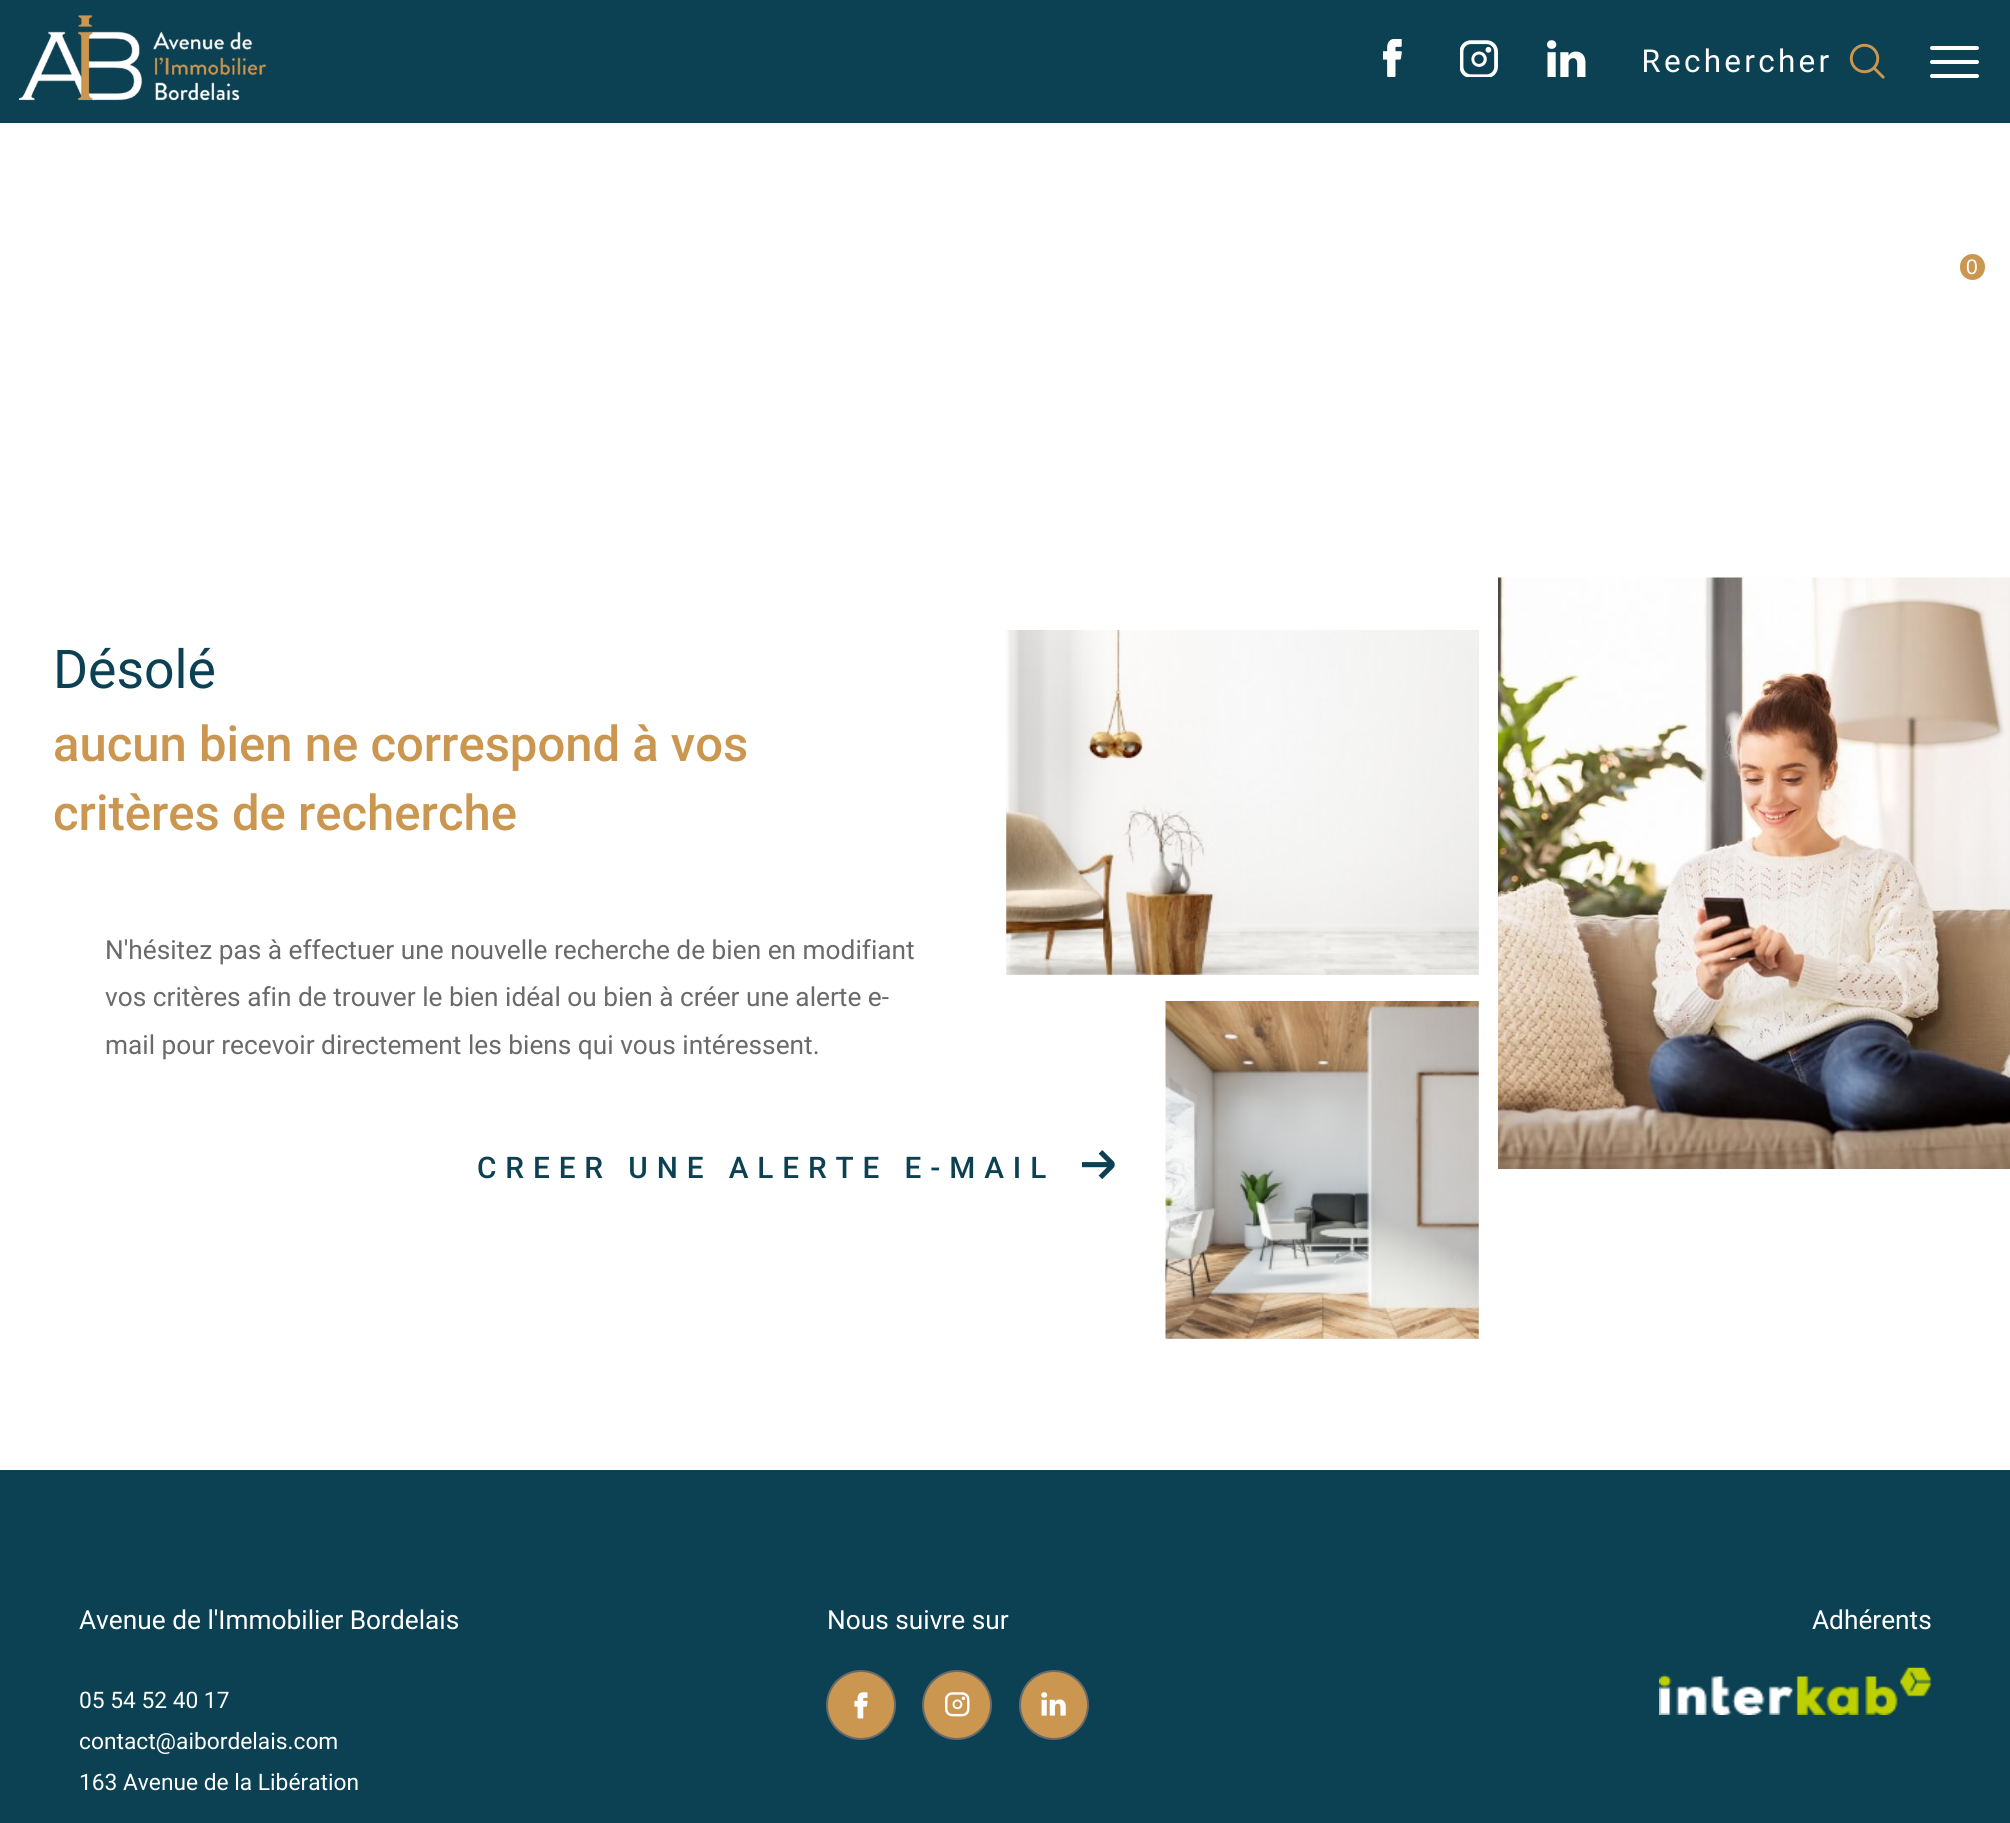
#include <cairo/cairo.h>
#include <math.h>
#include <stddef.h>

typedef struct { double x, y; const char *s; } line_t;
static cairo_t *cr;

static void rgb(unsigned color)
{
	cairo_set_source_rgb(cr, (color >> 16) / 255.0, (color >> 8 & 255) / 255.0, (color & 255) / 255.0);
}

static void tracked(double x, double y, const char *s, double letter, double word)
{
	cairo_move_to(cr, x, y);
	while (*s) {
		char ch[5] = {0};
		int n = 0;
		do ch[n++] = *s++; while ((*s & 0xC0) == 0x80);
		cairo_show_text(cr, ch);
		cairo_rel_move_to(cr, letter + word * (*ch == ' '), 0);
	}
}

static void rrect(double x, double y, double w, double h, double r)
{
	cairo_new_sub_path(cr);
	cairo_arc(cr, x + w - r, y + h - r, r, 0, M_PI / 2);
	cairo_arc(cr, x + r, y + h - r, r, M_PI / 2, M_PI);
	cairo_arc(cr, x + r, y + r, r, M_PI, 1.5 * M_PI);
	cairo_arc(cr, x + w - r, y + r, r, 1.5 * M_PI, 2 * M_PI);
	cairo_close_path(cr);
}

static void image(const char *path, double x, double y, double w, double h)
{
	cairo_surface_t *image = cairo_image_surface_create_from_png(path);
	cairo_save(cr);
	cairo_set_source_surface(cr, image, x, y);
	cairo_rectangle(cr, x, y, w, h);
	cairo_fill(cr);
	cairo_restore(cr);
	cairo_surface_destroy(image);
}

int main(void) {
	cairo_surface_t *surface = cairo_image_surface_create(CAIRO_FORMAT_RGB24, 2010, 1823);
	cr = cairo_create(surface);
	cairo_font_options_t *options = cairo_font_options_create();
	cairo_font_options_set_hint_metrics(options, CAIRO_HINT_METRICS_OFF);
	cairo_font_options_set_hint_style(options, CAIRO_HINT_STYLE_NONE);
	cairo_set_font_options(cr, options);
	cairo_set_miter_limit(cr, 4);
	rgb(0xffffff);
	cairo_paint(cr);
	rgb(0x0b4153);
	cairo_rectangle(cr, 0, 0, 2010, 123);
	cairo_fill(cr);
	image("img/1.png", 19, 15, 248, 86);
	image("img/2.png", 1383, 39, 19, 38);
	image("img/3.png", 1460, 40, 38, 37);
	image("img/4.png", 1547, 40, 39, 37);
	image("img/5.png", 1849, 43, 36, 36);
	rgb(0xffffff);
	rrect(1930, 60, 49, 4, 2);
	cairo_fill(cr);
	rrect(1930, 46, 49, 4, 2);
	cairo_fill(cr);
	rrect(1930, 74, 49, 4, 2);
	cairo_fill(cr);
	rgb(0xcb9750);
	rrect(1960, 254, 25, 26, 12.5);
	cairo_fill(cr);
	image("img/6.png", 1082, 1150, 33, 30);
	rgb(0xf1f1f1);
	cairo_rectangle(cr, 1006, 630, 473, 345);
	cairo_fill(cr);
	image("img/7.png", 1006, 630, 473, 345);
	cairo_rectangle(cr, 1166, 1001, 313, 338);
	cairo_fill(cr);
	image("img/8.png", 1165, 1001, 314, 338);
	image("img/9.png", 1498, 577, 512, 592);
	rgb(0x0b4153);
	cairo_rectangle(cr, 0, 1470, 2010, 353);
	cairo_fill(cr);
	rgb(0xcb9750);
	cairo_arc(cr, 861, 1705, 34, 0, 2 * M_PI);
	cairo_fill_preserve(cr);
	rgb(0x6a6a6a);
	cairo_stroke(cr);
	image("img/10.png", 854, 1692, 14, 27);
	rgb(0xcb9750);
	cairo_arc(cr, 957, 1705, 34, 0, 2 * M_PI);
	cairo_fill_preserve(cr);
	rgb(0x6a6a6a);
	cairo_stroke(cr);
	image("img/11.png", 945, 1692, 25, 25);
	rgb(0xcb9750);
	cairo_arc(cr, 1054, 1705, 34, 0, 2 * M_PI);
	cairo_fill_preserve(cr);
	rgb(0x6a6a6a);
	cairo_stroke(cr);
	image("img/12.png", 1041, 1692, 25, 24);
	image("img/13.png", 1659, 1667, 273, 48);
	cairo_select_font_face(cr, "Noto Sans", CAIRO_FONT_SLANT_NORMAL, CAIRO_FONT_WEIGHT_NORMAL);
	cairo_set_font_size(cr, 31.5);
	rgb(0xffffff);
	tracked(1641, 72, "R", 3.25, 0);
	cairo_select_font_face(cr, "Roboto", CAIRO_FONT_SLANT_NORMAL, CAIRO_FONT_WEIGHT_NORMAL);
	tracked(1664, 72, "echercher", 3.25, 0);
	cairo_select_font_face(cr, "Liberation Sans", CAIRO_FONT_SLANT_NORMAL, CAIRO_FONT_WEIGHT_NORMAL);
	cairo_set_font_size(cr, 21);
	cairo_move_to(cr, 1966, 274);
	cairo_show_text(cr, "0");
	cairo_select_font_face(cr, "Roboto", CAIRO_FONT_SLANT_NORMAL, CAIRO_FONT_WEIGHT_NORMAL);
	cairo_set_font_size(cr, 53.5);
	rgb(0x0b4153);
	cairo_move_to(cr, 53, 688);
	cairo_show_text(cr, "Désolé");
	cairo_select_font_face(cr, "Roboto Medium", CAIRO_FONT_SLANT_NORMAL, CAIRO_FONT_WEIGHT_NORMAL);
	cairo_set_font_size(cr, 49);
	rgb(0xcb9750);
	cairo_move_to(cr, 53, 761);
	cairo_show_text(cr, "aucun bien ne correspond à vos");
	cairo_move_to(cr, 53, 830);
	cairo_show_text(cr, "critères de recherche");
	cairo_select_font_face(cr, "Roboto", CAIRO_FONT_SLANT_NORMAL, CAIRO_FONT_WEIGHT_NORMAL);
	cairo_set_font_size(cr, 26.25);
	rgb(0x6a6a6a);
	{
		static const line_t items[] = {
			{105, 959, "N'hésitez pas à effectuer une nouvelle recherche de bien en modifiant"},
			{105, 1006, "vos critères afin de trouver le bien idéal ou bien à créer une alerte e-"},
			{105, 1054, "mail pour recevoir directement les biens qui vous intéressent."},
		};
		for (size_t i = 0; i < sizeof items / sizeof *items; i++) {
			cairo_move_to(cr, items[i].x, items[i].y);
			cairo_show_text(cr, items[i].s);
		}
	}
	cairo_select_font_face(cr, "Roboto Medium", CAIRO_FONT_SLANT_NORMAL, CAIRO_FONT_WEIGHT_NORMAL);
	cairo_set_font_size(cr, 29.75);
	rgb(0x0b4153);
	tracked(477, 1178, "CREER UNE ALERTE E-MAIL", 8.9, 0);
	cairo_select_font_face(cr, "Roboto", CAIRO_FONT_SLANT_NORMAL, CAIRO_FONT_WEIGHT_NORMAL);
	cairo_set_font_size(cr, 26.25);
	rgb(0xffffff);
	cairo_move_to(cr, 79, 1629);
	cairo_show_text(cr, "Avenue de l'Immobilier Bordelais");
	cairo_set_font_size(cr, 22.75);
	{
		static const line_t items[] = {
			{79, 1708, "05 54 52 40 17"},
			{79, 1749, "contact@aibordelais.com"},
			{79, 1790, "163 Avenue de la Libération"},
		};
		for (size_t i = 0; i < sizeof items / sizeof *items; i++) {
			cairo_move_to(cr, items[i].x, items[i].y);
			cairo_show_text(cr, items[i].s);
		}
	}
	cairo_set_font_size(cr, 26.25);
	cairo_move_to(cr, 827, 1629);
	cairo_show_text(cr, "Nous suivre sur");
	cairo_move_to(cr, 1812, 1629);
	cairo_show_text(cr, "Adhérents");
	cairo_surface_write_to_png(surface, "page.png");
	cairo_font_options_destroy(options);
	cairo_destroy(cr);
	cairo_surface_destroy(surface);
	return 0;
}
